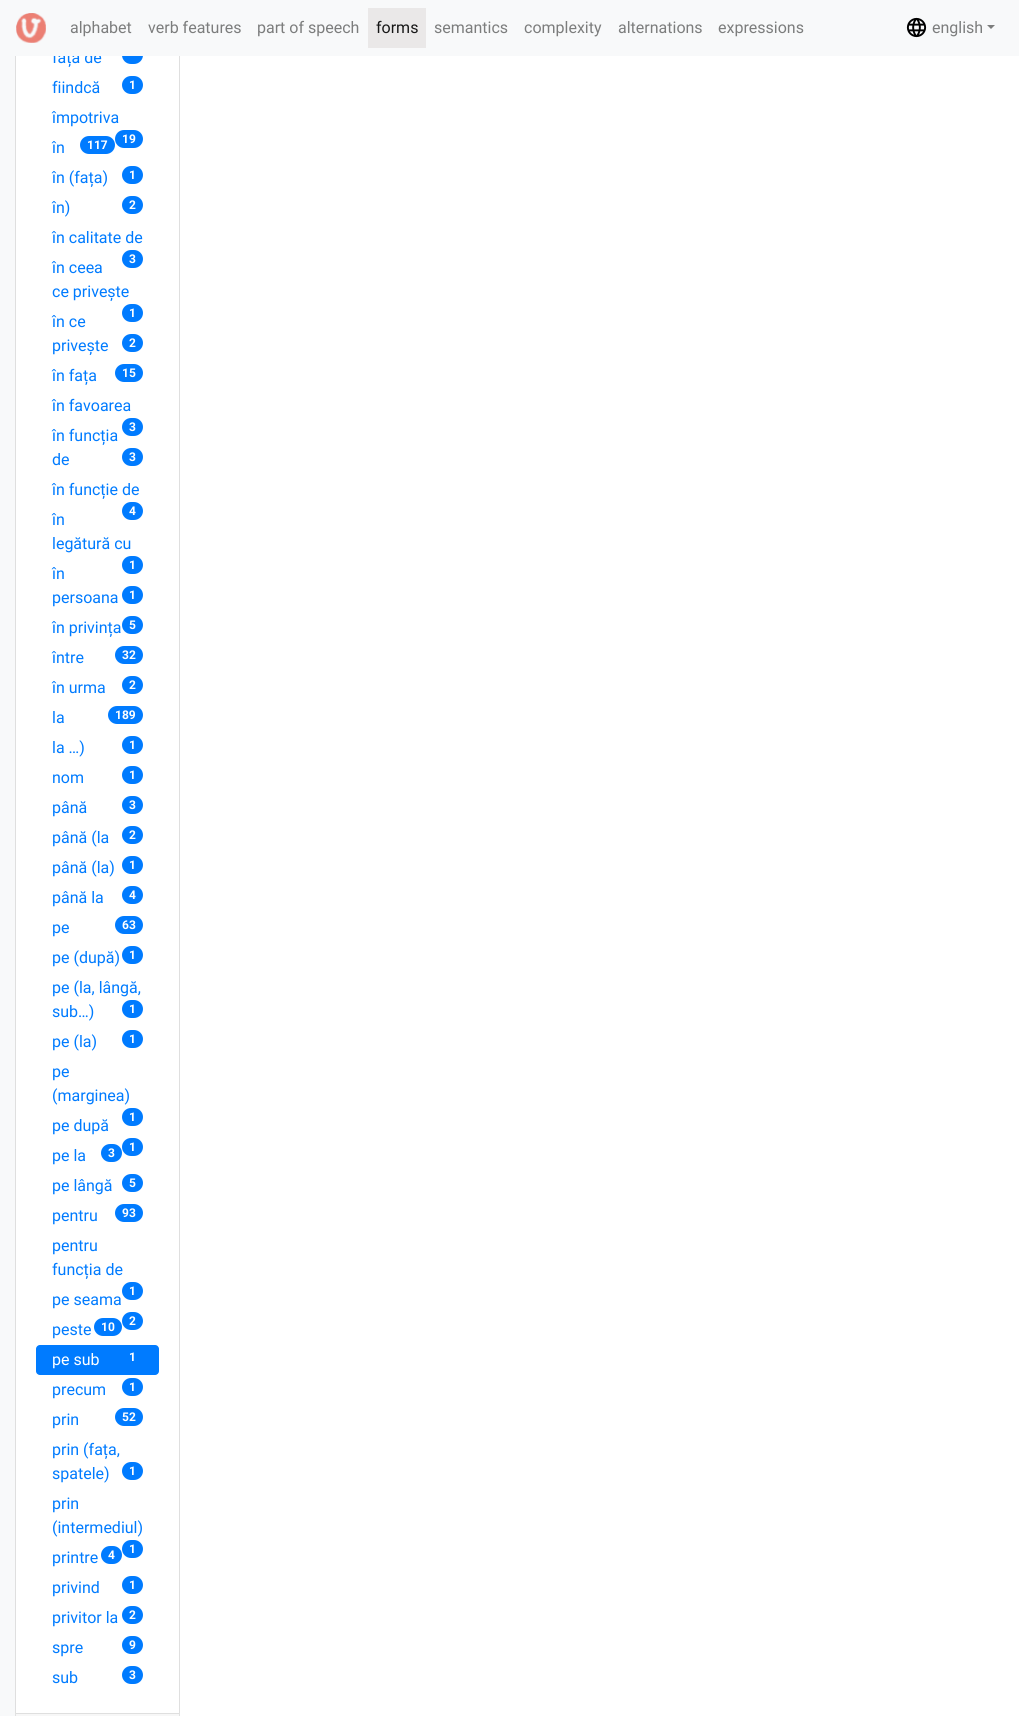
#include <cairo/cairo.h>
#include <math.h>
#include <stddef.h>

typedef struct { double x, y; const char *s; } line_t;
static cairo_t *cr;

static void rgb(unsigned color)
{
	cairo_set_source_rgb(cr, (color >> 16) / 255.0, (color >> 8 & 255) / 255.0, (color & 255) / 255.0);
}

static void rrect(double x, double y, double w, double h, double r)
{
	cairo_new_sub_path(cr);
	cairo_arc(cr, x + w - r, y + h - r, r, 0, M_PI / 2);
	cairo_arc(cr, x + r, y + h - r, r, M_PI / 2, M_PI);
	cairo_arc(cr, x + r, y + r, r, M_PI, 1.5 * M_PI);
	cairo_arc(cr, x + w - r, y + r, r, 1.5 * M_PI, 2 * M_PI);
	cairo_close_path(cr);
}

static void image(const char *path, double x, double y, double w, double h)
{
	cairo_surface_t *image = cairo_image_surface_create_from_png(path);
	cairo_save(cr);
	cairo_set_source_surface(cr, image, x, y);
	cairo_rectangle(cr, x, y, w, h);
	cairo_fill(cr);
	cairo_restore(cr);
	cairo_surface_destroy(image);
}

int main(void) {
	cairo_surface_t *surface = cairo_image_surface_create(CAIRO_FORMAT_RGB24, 1019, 1716);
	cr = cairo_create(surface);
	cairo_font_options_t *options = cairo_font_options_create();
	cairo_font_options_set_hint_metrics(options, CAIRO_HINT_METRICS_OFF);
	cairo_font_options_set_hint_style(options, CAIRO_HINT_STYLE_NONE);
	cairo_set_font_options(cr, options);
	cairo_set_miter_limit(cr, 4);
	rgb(0xffffff);
	cairo_paint(cr);
	rgb(0xf8f9fa);
	cairo_rectangle(cr, 0, 56, 15, 1660);
	cairo_fill(cr);
	rgb(0xdfdfdf);
	cairo_new_path(cr);
	cairo_move_to(cr, 180, -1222);
	cairo_line_to(cr, 180, 1713);
	cairo_line_to(cr, 179, 1713);
	cairo_line_to(cr, 179, -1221);
	cairo_close_path(cr);
	cairo_fill(cr);
	cairo_new_path(cr);
	cairo_move_to(cr, 15, 1713);
	cairo_line_to(cr, 15, -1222);
	cairo_line_to(cr, 16, -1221);
	cairo_line_to(cr, 16, 1713);
	cairo_close_path(cr);
	cairo_fill(cr);
	rgb(0x007bff);
	rrect(122, 46, 21, 18, 9);
	cairo_fill(cr);
	rrect(122, 76, 21, 18, 9);
	cairo_fill(cr);
	rrect(115, 130, 28, 18, 9);
	cairo_fill(cr);
	rrect(80, 136, 35, 18, 9);
	cairo_fill(cr);
	rrect(122, 166, 21, 18, 9);
	cairo_fill(cr);
	rrect(122, 196, 21, 18, 9);
	cairo_fill(cr);
	rrect(122, 250, 21, 18, 9);
	cairo_fill(cr);
	rrect(122, 304, 21, 18, 9);
	cairo_fill(cr);
	rrect(122, 334, 21, 18, 9);
	cairo_fill(cr);
	rrect(115, 364, 28, 18, 9);
	cairo_fill(cr);
	rrect(122, 418, 21, 18, 9);
	cairo_fill(cr);
	rrect(122, 448, 21, 18, 9);
	cairo_fill(cr);
	rrect(122, 502, 21, 18, 9);
	cairo_fill(cr);
	rrect(122, 556, 21, 18, 9);
	cairo_fill(cr);
	rrect(122, 586, 21, 18, 9);
	cairo_fill(cr);
	rrect(122, 616, 21, 18, 9);
	cairo_fill(cr);
	rrect(115, 646, 28, 18, 9);
	cairo_fill(cr);
	rrect(122, 676, 21, 18, 9);
	cairo_fill(cr);
	rrect(108, 706, 35, 18, 9);
	cairo_fill(cr);
	rrect(122, 736, 21, 18, 9);
	cairo_fill(cr);
	rrect(122, 766, 21, 18, 9);
	cairo_fill(cr);
	rrect(122, 796, 21, 18, 9);
	cairo_fill(cr);
	rrect(122, 826, 21, 18, 9);
	cairo_fill(cr);
	rrect(122, 856, 21, 18, 9);
	cairo_fill(cr);
	rrect(122, 886, 21, 18, 9);
	cairo_fill(cr);
	rrect(115, 916, 28, 18, 9);
	cairo_fill(cr);
	rrect(122, 946, 21, 18, 9);
	cairo_fill(cr);
	rrect(122, 1000, 21, 18, 9);
	cairo_fill(cr);
	rrect(122, 1030, 21, 18, 9);
	cairo_fill(cr);
	rrect(122, 1108, 21, 18, 9);
	cairo_fill(cr);
	rrect(122, 1138, 21, 18, 9);
	cairo_fill(cr);
	rrect(101, 1144, 21, 18, 9);
	cairo_fill(cr);
	rrect(122, 1174, 21, 18, 9);
	cairo_fill(cr);
	rrect(115, 1204, 28, 18, 9);
	cairo_fill(cr);
	rrect(122, 1282, 21, 18, 9);
	cairo_fill(cr);
	rrect(122, 1312, 21, 18, 9);
	cairo_fill(cr);
	rrect(94, 1318, 28, 18, 9);
	cairo_fill(cr);
	rrect(36, 1345, 123, 30, 4);
	cairo_fill(cr);
	rrect(122, 1378, 21, 18, 9);
	cairo_fill(cr);
	rrect(115, 1408, 28, 18, 9);
	cairo_fill(cr);
	rrect(122, 1462, 21, 18, 9);
	cairo_fill(cr);
	rrect(122, 1540, 21, 18, 9);
	cairo_fill(cr);
	rrect(101, 1546, 21, 18, 9);
	cairo_fill(cr);
	rrect(122, 1576, 21, 18, 9);
	cairo_fill(cr);
	rrect(122, 1606, 21, 18, 9);
	cairo_fill(cr);
	rrect(122, 1636, 21, 18, 9);
	cairo_fill(cr);
	rrect(122, 1666, 21, 18, 9);
	cairo_fill(cr);
	rgb(0xdfdfdf);
	cairo_new_path(cr);
	cairo_move_to(cr, 15, 1713);
	cairo_line_to(cr, 180, 1713);
	cairo_line_to(cr, 179, 1714);
	cairo_line_to(cr, 16, 1714);
	cairo_close_path(cr);
	cairo_fill(cr);
	cairo_set_source_rgba(cr, 0, 0, 0, 0.12);
	cairo_new_path(cr);
	cairo_move_to(cr, 180, 1713);
	cairo_line_to(cr, 180, 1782);
	cairo_line_to(cr, 179, 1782);
	cairo_line_to(cr, 179, 1714);
	cairo_close_path(cr);
	cairo_fill(cr);
	cairo_new_path(cr);
	cairo_move_to(cr, 15, 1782);
	cairo_line_to(cr, 15, 1713);
	cairo_line_to(cr, 16, 1714);
	cairo_line_to(cr, 16, 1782);
	cairo_close_path(cr);
	cairo_fill(cr);
	rgb(0xf7f7f7);
	cairo_rectangle(cr, 16, 1714, 163, 2);
	cairo_fill(cr);
	cairo_select_font_face(cr, "Roboto", CAIRO_FONT_SLANT_NORMAL, CAIRO_FONT_WEIGHT_NORMAL);
	cairo_set_font_size(cr, 16);
	rgb(0x007bff);
	cairo_move_to(cr, 52, 63);
	cairo_show_text(cr, "față de");
	rgb(0xf8f9fa);
	cairo_rectangle(cr, 0, 0, 1019, 56);
	cairo_fill(cr);
	rgb(0x7c7d7d);
	cairo_new_path(cr);
	cairo_move_to(cr, 987, 25);
	cairo_line_to(cr, 995, 25);
	cairo_line_to(cr, 991, 29);
	cairo_close_path(cr);
	cairo_fill(cr);
	cairo_move_to(cr, 932, 33);
	cairo_show_text(cr, "english");
	image("img/2.png", 906, 17, 21, 21);
	{
		static const line_t items[] = {
			{718, 33, "expressions"},
			{618, 33, "alternations"},
			{524, 33, "complexity"},
			{434, 33, "semantics"},
		};
		for (size_t i = 0; i < sizeof items / sizeof *items; i++) {
			cairo_move_to(cr, items[i].x, items[i].y);
			cairo_show_text(cr, items[i].s);
		}
	}
	rgb(0xeae8e8);
	cairo_rectangle(cr, 368, 8, 58, 40);
	cairo_fill(cr);
	rgb(0x171717);
	cairo_move_to(cr, 376, 33);
	cairo_show_text(cr, "forms");
	rgb(0x7c7d7d);
	{
		static const line_t items[] = {
			{257, 33, "part of speech"},
			{148, 33, "verb features"},
			{70, 33, "alphabet"},
		};
		for (size_t i = 0; i < sizeof items / sizeof *items; i++) {
			cairo_move_to(cr, items[i].x, items[i].y);
			cairo_show_text(cr, items[i].s);
		}
	}
	image("img/1.png", 16, 13, 30, 30);
	rgb(0x007bff);
	cairo_move_to(cr, 52, 93);
	cairo_show_text(cr, "fiindcă");
	cairo_select_font_face(cr, "Roboto", CAIRO_FONT_SLANT_NORMAL, CAIRO_FONT_WEIGHT_BOLD);
	cairo_set_font_size(cr, 12);
	rgb(0xffffff);
	cairo_move_to(cr, 129, 89);
	cairo_show_text(cr, "1");
	cairo_select_font_face(cr, "Roboto", CAIRO_FONT_SLANT_NORMAL, CAIRO_FONT_WEIGHT_NORMAL);
	cairo_set_font_size(cr, 16);
	rgb(0x007bff);
	cairo_move_to(cr, 52, 123);
	cairo_show_text(cr, "împotriva");
	cairo_select_font_face(cr, "Roboto", CAIRO_FONT_SLANT_NORMAL, CAIRO_FONT_WEIGHT_BOLD);
	cairo_set_font_size(cr, 12);
	rgb(0xffffff);
	cairo_move_to(cr, 122, 143);
	cairo_show_text(cr, "19");
	cairo_select_font_face(cr, "Roboto", CAIRO_FONT_SLANT_NORMAL, CAIRO_FONT_WEIGHT_NORMAL);
	cairo_set_font_size(cr, 16);
	rgb(0x007bff);
	cairo_move_to(cr, 52, 153);
	cairo_show_text(cr, "în");
	cairo_select_font_face(cr, "Roboto", CAIRO_FONT_SLANT_NORMAL, CAIRO_FONT_WEIGHT_BOLD);
	cairo_set_font_size(cr, 12);
	rgb(0xffffff);
	cairo_move_to(cr, 87, 149);
	cairo_show_text(cr, "117");
	cairo_select_font_face(cr, "Roboto", CAIRO_FONT_SLANT_NORMAL, CAIRO_FONT_WEIGHT_NORMAL);
	cairo_set_font_size(cr, 16);
	rgb(0x007bff);
	cairo_move_to(cr, 52, 183);
	cairo_show_text(cr, "în (fața)");
	cairo_select_font_face(cr, "Roboto", CAIRO_FONT_SLANT_NORMAL, CAIRO_FONT_WEIGHT_BOLD);
	cairo_set_font_size(cr, 12);
	rgb(0xffffff);
	cairo_move_to(cr, 129, 179);
	cairo_show_text(cr, "1");
	cairo_select_font_face(cr, "Roboto", CAIRO_FONT_SLANT_NORMAL, CAIRO_FONT_WEIGHT_NORMAL);
	cairo_set_font_size(cr, 16);
	rgb(0x007bff);
	cairo_move_to(cr, 52, 213);
	cairo_show_text(cr, "în)");
	cairo_select_font_face(cr, "Roboto", CAIRO_FONT_SLANT_NORMAL, CAIRO_FONT_WEIGHT_BOLD);
	cairo_set_font_size(cr, 12);
	rgb(0xffffff);
	cairo_move_to(cr, 129, 209);
	cairo_show_text(cr, "2");
	cairo_select_font_face(cr, "Roboto", CAIRO_FONT_SLANT_NORMAL, CAIRO_FONT_WEIGHT_NORMAL);
	cairo_set_font_size(cr, 16);
	rgb(0x007bff);
	cairo_move_to(cr, 52, 243);
	cairo_show_text(cr, "în calitate de");
	cairo_select_font_face(cr, "Roboto", CAIRO_FONT_SLANT_NORMAL, CAIRO_FONT_WEIGHT_BOLD);
	cairo_set_font_size(cr, 12);
	rgb(0xffffff);
	cairo_move_to(cr, 129, 263);
	cairo_show_text(cr, "3");
	cairo_select_font_face(cr, "Roboto", CAIRO_FONT_SLANT_NORMAL, CAIRO_FONT_WEIGHT_NORMAL);
	cairo_set_font_size(cr, 16);
	rgb(0x007bff);
	cairo_move_to(cr, 52, 273);
	cairo_show_text(cr, "în ceea");
	cairo_move_to(cr, 52, 297);
	cairo_show_text(cr, "ce privește");
	cairo_select_font_face(cr, "Roboto", CAIRO_FONT_SLANT_NORMAL, CAIRO_FONT_WEIGHT_BOLD);
	cairo_set_font_size(cr, 12);
	rgb(0xffffff);
	cairo_move_to(cr, 129, 317);
	cairo_show_text(cr, "1");
	cairo_select_font_face(cr, "Roboto", CAIRO_FONT_SLANT_NORMAL, CAIRO_FONT_WEIGHT_NORMAL);
	cairo_set_font_size(cr, 16);
	rgb(0x007bff);
	cairo_move_to(cr, 52, 327);
	cairo_show_text(cr, "în ce");
	cairo_move_to(cr, 52, 351);
	cairo_show_text(cr, "privește");
	cairo_select_font_face(cr, "Roboto", CAIRO_FONT_SLANT_NORMAL, CAIRO_FONT_WEIGHT_BOLD);
	cairo_set_font_size(cr, 12);
	rgb(0xffffff);
	cairo_move_to(cr, 129, 347);
	cairo_show_text(cr, "2");
	cairo_select_font_face(cr, "Roboto", CAIRO_FONT_SLANT_NORMAL, CAIRO_FONT_WEIGHT_NORMAL);
	cairo_set_font_size(cr, 16);
	rgb(0x007bff);
	cairo_move_to(cr, 52, 381);
	cairo_show_text(cr, "în fața");
	cairo_select_font_face(cr, "Roboto", CAIRO_FONT_SLANT_NORMAL, CAIRO_FONT_WEIGHT_BOLD);
	cairo_set_font_size(cr, 12);
	rgb(0xffffff);
	cairo_move_to(cr, 122, 377);
	cairo_show_text(cr, "15");
	cairo_select_font_face(cr, "Roboto", CAIRO_FONT_SLANT_NORMAL, CAIRO_FONT_WEIGHT_NORMAL);
	cairo_set_font_size(cr, 16);
	rgb(0x007bff);
	cairo_move_to(cr, 52, 411);
	cairo_show_text(cr, "în favoarea");
	cairo_select_font_face(cr, "Roboto", CAIRO_FONT_SLANT_NORMAL, CAIRO_FONT_WEIGHT_BOLD);
	cairo_set_font_size(cr, 12);
	rgb(0xffffff);
	cairo_move_to(cr, 129, 431);
	cairo_show_text(cr, "3");
	cairo_select_font_face(cr, "Roboto", CAIRO_FONT_SLANT_NORMAL, CAIRO_FONT_WEIGHT_NORMAL);
	cairo_set_font_size(cr, 16);
	rgb(0x007bff);
	cairo_move_to(cr, 52, 441);
	cairo_show_text(cr, "în funcția");
	cairo_move_to(cr, 52, 465);
	cairo_show_text(cr, "de");
	cairo_select_font_face(cr, "Roboto", CAIRO_FONT_SLANT_NORMAL, CAIRO_FONT_WEIGHT_BOLD);
	cairo_set_font_size(cr, 12);
	rgb(0xffffff);
	cairo_move_to(cr, 129, 461);
	cairo_show_text(cr, "3");
	cairo_select_font_face(cr, "Roboto", CAIRO_FONT_SLANT_NORMAL, CAIRO_FONT_WEIGHT_NORMAL);
	cairo_set_font_size(cr, 16);
	rgb(0x007bff);
	cairo_move_to(cr, 52, 495);
	cairo_show_text(cr, "în funcție de");
	cairo_select_font_face(cr, "Roboto", CAIRO_FONT_SLANT_NORMAL, CAIRO_FONT_WEIGHT_BOLD);
	cairo_set_font_size(cr, 12);
	rgb(0xffffff);
	cairo_move_to(cr, 129, 515);
	cairo_show_text(cr, "4");
	cairo_select_font_face(cr, "Roboto", CAIRO_FONT_SLANT_NORMAL, CAIRO_FONT_WEIGHT_NORMAL);
	cairo_set_font_size(cr, 16);
	rgb(0x007bff);
	cairo_move_to(cr, 52, 525);
	cairo_show_text(cr, "în");
	cairo_move_to(cr, 52, 549);
	cairo_show_text(cr, "legătură cu");
	cairo_select_font_face(cr, "Roboto", CAIRO_FONT_SLANT_NORMAL, CAIRO_FONT_WEIGHT_BOLD);
	cairo_set_font_size(cr, 12);
	rgb(0xffffff);
	cairo_move_to(cr, 129, 569);
	cairo_show_text(cr, "1");
	cairo_select_font_face(cr, "Roboto", CAIRO_FONT_SLANT_NORMAL, CAIRO_FONT_WEIGHT_NORMAL);
	cairo_set_font_size(cr, 16);
	rgb(0x007bff);
	cairo_move_to(cr, 52, 579);
	cairo_show_text(cr, "în");
	cairo_move_to(cr, 52, 603);
	cairo_show_text(cr, "persoana");
	cairo_select_font_face(cr, "Roboto", CAIRO_FONT_SLANT_NORMAL, CAIRO_FONT_WEIGHT_BOLD);
	cairo_set_font_size(cr, 12);
	rgb(0xffffff);
	cairo_move_to(cr, 129, 599);
	cairo_show_text(cr, "1");
	cairo_select_font_face(cr, "Roboto", CAIRO_FONT_SLANT_NORMAL, CAIRO_FONT_WEIGHT_NORMAL);
	cairo_set_font_size(cr, 16);
	rgb(0x007bff);
	cairo_move_to(cr, 52, 633);
	cairo_show_text(cr, "în privința");
	cairo_select_font_face(cr, "Roboto", CAIRO_FONT_SLANT_NORMAL, CAIRO_FONT_WEIGHT_BOLD);
	cairo_set_font_size(cr, 12);
	rgb(0xffffff);
	cairo_move_to(cr, 129, 629);
	cairo_show_text(cr, "5");
	cairo_select_font_face(cr, "Roboto", CAIRO_FONT_SLANT_NORMAL, CAIRO_FONT_WEIGHT_NORMAL);
	cairo_set_font_size(cr, 16);
	rgb(0x007bff);
	cairo_move_to(cr, 52, 663);
	cairo_show_text(cr, "între");
	cairo_select_font_face(cr, "Roboto", CAIRO_FONT_SLANT_NORMAL, CAIRO_FONT_WEIGHT_BOLD);
	cairo_set_font_size(cr, 12);
	rgb(0xffffff);
	cairo_move_to(cr, 122, 659);
	cairo_show_text(cr, "32");
	cairo_select_font_face(cr, "Roboto", CAIRO_FONT_SLANT_NORMAL, CAIRO_FONT_WEIGHT_NORMAL);
	cairo_set_font_size(cr, 16);
	rgb(0x007bff);
	cairo_move_to(cr, 52, 693);
	cairo_show_text(cr, "în urma");
	cairo_select_font_face(cr, "Roboto", CAIRO_FONT_SLANT_NORMAL, CAIRO_FONT_WEIGHT_BOLD);
	cairo_set_font_size(cr, 12);
	rgb(0xffffff);
	cairo_move_to(cr, 129, 689);
	cairo_show_text(cr, "2");
	cairo_select_font_face(cr, "Roboto", CAIRO_FONT_SLANT_NORMAL, CAIRO_FONT_WEIGHT_NORMAL);
	cairo_set_font_size(cr, 16);
	rgb(0x007bff);
	cairo_move_to(cr, 52, 723);
	cairo_show_text(cr, "la");
	cairo_select_font_face(cr, "Roboto", CAIRO_FONT_SLANT_NORMAL, CAIRO_FONT_WEIGHT_BOLD);
	cairo_set_font_size(cr, 12);
	rgb(0xffffff);
	cairo_move_to(cr, 115, 719);
	cairo_show_text(cr, "189");
	cairo_select_font_face(cr, "Roboto", CAIRO_FONT_SLANT_NORMAL, CAIRO_FONT_WEIGHT_NORMAL);
	cairo_set_font_size(cr, 16);
	rgb(0x007bff);
	cairo_move_to(cr, 52, 753);
	cairo_show_text(cr, "la …)");
	cairo_select_font_face(cr, "Roboto", CAIRO_FONT_SLANT_NORMAL, CAIRO_FONT_WEIGHT_BOLD);
	cairo_set_font_size(cr, 12);
	rgb(0xffffff);
	cairo_move_to(cr, 129, 749);
	cairo_show_text(cr, "1");
	cairo_select_font_face(cr, "Roboto", CAIRO_FONT_SLANT_NORMAL, CAIRO_FONT_WEIGHT_NORMAL);
	cairo_set_font_size(cr, 16);
	rgb(0x007bff);
	cairo_move_to(cr, 52, 783);
	cairo_show_text(cr, "nom");
	cairo_select_font_face(cr, "Roboto", CAIRO_FONT_SLANT_NORMAL, CAIRO_FONT_WEIGHT_BOLD);
	cairo_set_font_size(cr, 12);
	rgb(0xffffff);
	cairo_move_to(cr, 129, 779);
	cairo_show_text(cr, "1");
	cairo_select_font_face(cr, "Roboto", CAIRO_FONT_SLANT_NORMAL, CAIRO_FONT_WEIGHT_NORMAL);
	cairo_set_font_size(cr, 16);
	rgb(0x007bff);
	cairo_move_to(cr, 52, 813);
	cairo_show_text(cr, "până");
	cairo_select_font_face(cr, "Roboto", CAIRO_FONT_SLANT_NORMAL, CAIRO_FONT_WEIGHT_BOLD);
	cairo_set_font_size(cr, 12);
	rgb(0xffffff);
	cairo_move_to(cr, 129, 809);
	cairo_show_text(cr, "3");
	cairo_select_font_face(cr, "Roboto", CAIRO_FONT_SLANT_NORMAL, CAIRO_FONT_WEIGHT_NORMAL);
	cairo_set_font_size(cr, 16);
	rgb(0x007bff);
	cairo_move_to(cr, 52, 843);
	cairo_show_text(cr, "până (la");
	cairo_select_font_face(cr, "Roboto", CAIRO_FONT_SLANT_NORMAL, CAIRO_FONT_WEIGHT_BOLD);
	cairo_set_font_size(cr, 12);
	rgb(0xffffff);
	cairo_move_to(cr, 129, 839);
	cairo_show_text(cr, "2");
	cairo_select_font_face(cr, "Roboto", CAIRO_FONT_SLANT_NORMAL, CAIRO_FONT_WEIGHT_NORMAL);
	cairo_set_font_size(cr, 16);
	rgb(0x007bff);
	cairo_move_to(cr, 52, 873);
	cairo_show_text(cr, "până (la)");
	cairo_select_font_face(cr, "Roboto", CAIRO_FONT_SLANT_NORMAL, CAIRO_FONT_WEIGHT_BOLD);
	cairo_set_font_size(cr, 12);
	rgb(0xffffff);
	cairo_move_to(cr, 129, 869);
	cairo_show_text(cr, "1");
	cairo_select_font_face(cr, "Roboto", CAIRO_FONT_SLANT_NORMAL, CAIRO_FONT_WEIGHT_NORMAL);
	cairo_set_font_size(cr, 16);
	rgb(0x007bff);
	cairo_move_to(cr, 52, 903);
	cairo_show_text(cr, "până la");
	cairo_select_font_face(cr, "Roboto", CAIRO_FONT_SLANT_NORMAL, CAIRO_FONT_WEIGHT_BOLD);
	cairo_set_font_size(cr, 12);
	rgb(0xffffff);
	cairo_move_to(cr, 129, 899);
	cairo_show_text(cr, "4");
	cairo_select_font_face(cr, "Roboto", CAIRO_FONT_SLANT_NORMAL, CAIRO_FONT_WEIGHT_NORMAL);
	cairo_set_font_size(cr, 16);
	rgb(0x007bff);
	cairo_move_to(cr, 52, 933);
	cairo_show_text(cr, "pe");
	cairo_select_font_face(cr, "Roboto", CAIRO_FONT_SLANT_NORMAL, CAIRO_FONT_WEIGHT_BOLD);
	cairo_set_font_size(cr, 12);
	rgb(0xffffff);
	cairo_move_to(cr, 122, 929);
	cairo_show_text(cr, "63");
	cairo_select_font_face(cr, "Roboto", CAIRO_FONT_SLANT_NORMAL, CAIRO_FONT_WEIGHT_NORMAL);
	cairo_set_font_size(cr, 16);
	rgb(0x007bff);
	cairo_move_to(cr, 52, 963);
	cairo_show_text(cr, "pe (după)");
	cairo_select_font_face(cr, "Roboto", CAIRO_FONT_SLANT_NORMAL, CAIRO_FONT_WEIGHT_BOLD);
	cairo_set_font_size(cr, 12);
	rgb(0xffffff);
	cairo_move_to(cr, 129, 959);
	cairo_show_text(cr, "1");
	cairo_select_font_face(cr, "Roboto", CAIRO_FONT_SLANT_NORMAL, CAIRO_FONT_WEIGHT_NORMAL);
	cairo_set_font_size(cr, 16);
	rgb(0x007bff);
	cairo_move_to(cr, 52, 993);
	cairo_show_text(cr, "pe (la, lângă,");
	cairo_move_to(cr, 52, 1017);
	cairo_show_text(cr, "sub…)");
	cairo_select_font_face(cr, "Roboto", CAIRO_FONT_SLANT_NORMAL, CAIRO_FONT_WEIGHT_BOLD);
	cairo_set_font_size(cr, 12);
	rgb(0xffffff);
	cairo_move_to(cr, 129, 1013);
	cairo_show_text(cr, "1");
	cairo_select_font_face(cr, "Roboto", CAIRO_FONT_SLANT_NORMAL, CAIRO_FONT_WEIGHT_NORMAL);
	cairo_set_font_size(cr, 16);
	rgb(0x007bff);
	cairo_move_to(cr, 52, 1047);
	cairo_show_text(cr, "pe (la)");
	cairo_select_font_face(cr, "Roboto", CAIRO_FONT_SLANT_NORMAL, CAIRO_FONT_WEIGHT_BOLD);
	cairo_set_font_size(cr, 12);
	rgb(0xffffff);
	cairo_move_to(cr, 129, 1043);
	cairo_show_text(cr, "1");
	cairo_select_font_face(cr, "Roboto", CAIRO_FONT_SLANT_NORMAL, CAIRO_FONT_WEIGHT_NORMAL);
	cairo_set_font_size(cr, 16);
	rgb(0x007bff);
	cairo_move_to(cr, 52, 1077);
	cairo_show_text(cr, "pe");
	cairo_move_to(cr, 52, 1101);
	cairo_show_text(cr, "(marginea)");
	cairo_select_font_face(cr, "Roboto", CAIRO_FONT_SLANT_NORMAL, CAIRO_FONT_WEIGHT_BOLD);
	cairo_set_font_size(cr, 12);
	rgb(0xffffff);
	cairo_move_to(cr, 129, 1121);
	cairo_show_text(cr, "1");
	cairo_select_font_face(cr, "Roboto", CAIRO_FONT_SLANT_NORMAL, CAIRO_FONT_WEIGHT_NORMAL);
	cairo_set_font_size(cr, 16);
	rgb(0x007bff);
	cairo_move_to(cr, 52, 1131);
	cairo_show_text(cr, "pe după");
	cairo_select_font_face(cr, "Roboto", CAIRO_FONT_SLANT_NORMAL, CAIRO_FONT_WEIGHT_BOLD);
	cairo_set_font_size(cr, 12);
	rgb(0xffffff);
	cairo_move_to(cr, 129, 1151);
	cairo_show_text(cr, "1");
	cairo_select_font_face(cr, "Roboto", CAIRO_FONT_SLANT_NORMAL, CAIRO_FONT_WEIGHT_NORMAL);
	cairo_set_font_size(cr, 16);
	rgb(0x007bff);
	cairo_move_to(cr, 52, 1161);
	cairo_show_text(cr, "pe la");
	cairo_select_font_face(cr, "Roboto", CAIRO_FONT_SLANT_NORMAL, CAIRO_FONT_WEIGHT_BOLD);
	cairo_set_font_size(cr, 12);
	rgb(0xffffff);
	cairo_move_to(cr, 108, 1157);
	cairo_show_text(cr, "3");
	cairo_select_font_face(cr, "Roboto", CAIRO_FONT_SLANT_NORMAL, CAIRO_FONT_WEIGHT_NORMAL);
	cairo_set_font_size(cr, 16);
	rgb(0x007bff);
	cairo_move_to(cr, 52, 1191);
	cairo_show_text(cr, "pe lângă");
	cairo_select_font_face(cr, "Roboto", CAIRO_FONT_SLANT_NORMAL, CAIRO_FONT_WEIGHT_BOLD);
	cairo_set_font_size(cr, 12);
	rgb(0xffffff);
	cairo_move_to(cr, 129, 1187);
	cairo_show_text(cr, "5");
	cairo_select_font_face(cr, "Roboto", CAIRO_FONT_SLANT_NORMAL, CAIRO_FONT_WEIGHT_NORMAL);
	cairo_set_font_size(cr, 16);
	rgb(0x007bff);
	cairo_move_to(cr, 52, 1221);
	cairo_show_text(cr, "pentru");
	cairo_select_font_face(cr, "Roboto", CAIRO_FONT_SLANT_NORMAL, CAIRO_FONT_WEIGHT_BOLD);
	cairo_set_font_size(cr, 12);
	rgb(0xffffff);
	cairo_move_to(cr, 122, 1217);
	cairo_show_text(cr, "93");
	cairo_select_font_face(cr, "Roboto", CAIRO_FONT_SLANT_NORMAL, CAIRO_FONT_WEIGHT_NORMAL);
	cairo_set_font_size(cr, 16);
	rgb(0x007bff);
	cairo_move_to(cr, 52, 1251);
	cairo_show_text(cr, "pentru");
	cairo_move_to(cr, 52, 1275);
	cairo_show_text(cr, "funcția de");
	cairo_select_font_face(cr, "Roboto", CAIRO_FONT_SLANT_NORMAL, CAIRO_FONT_WEIGHT_BOLD);
	cairo_set_font_size(cr, 12);
	rgb(0xffffff);
	cairo_move_to(cr, 129, 1295);
	cairo_show_text(cr, "1");
	cairo_select_font_face(cr, "Roboto", CAIRO_FONT_SLANT_NORMAL, CAIRO_FONT_WEIGHT_NORMAL);
	cairo_set_font_size(cr, 16);
	rgb(0x007bff);
	cairo_move_to(cr, 52, 1305);
	cairo_show_text(cr, "pe seama");
	cairo_select_font_face(cr, "Roboto", CAIRO_FONT_SLANT_NORMAL, CAIRO_FONT_WEIGHT_BOLD);
	cairo_set_font_size(cr, 12);
	rgb(0xffffff);
	cairo_move_to(cr, 129, 1325);
	cairo_show_text(cr, "2");
	cairo_select_font_face(cr, "Roboto", CAIRO_FONT_SLANT_NORMAL, CAIRO_FONT_WEIGHT_NORMAL);
	cairo_set_font_size(cr, 16);
	rgb(0x007bff);
	cairo_move_to(cr, 52, 1335);
	cairo_show_text(cr, "peste");
	cairo_select_font_face(cr, "Roboto", CAIRO_FONT_SLANT_NORMAL, CAIRO_FONT_WEIGHT_BOLD);
	cairo_set_font_size(cr, 12);
	rgb(0xffffff);
	cairo_move_to(cr, 101, 1331);
	cairo_show_text(cr, "10");
	cairo_select_font_face(cr, "Roboto", CAIRO_FONT_SLANT_NORMAL, CAIRO_FONT_WEIGHT_NORMAL);
	cairo_set_font_size(cr, 16);
	cairo_move_to(cr, 52, 1365);
	cairo_show_text(cr, "pe sub");
	cairo_select_font_face(cr, "Roboto", CAIRO_FONT_SLANT_NORMAL, CAIRO_FONT_WEIGHT_BOLD);
	cairo_set_font_size(cr, 12);
	cairo_move_to(cr, 129, 1361);
	cairo_show_text(cr, "1");
	cairo_select_font_face(cr, "Roboto", CAIRO_FONT_SLANT_NORMAL, CAIRO_FONT_WEIGHT_NORMAL);
	cairo_set_font_size(cr, 16);
	rgb(0x007bff);
	cairo_move_to(cr, 52, 1395);
	cairo_show_text(cr, "precum");
	cairo_select_font_face(cr, "Roboto", CAIRO_FONT_SLANT_NORMAL, CAIRO_FONT_WEIGHT_BOLD);
	cairo_set_font_size(cr, 12);
	rgb(0xffffff);
	cairo_move_to(cr, 129, 1391);
	cairo_show_text(cr, "1");
	cairo_select_font_face(cr, "Roboto", CAIRO_FONT_SLANT_NORMAL, CAIRO_FONT_WEIGHT_NORMAL);
	cairo_set_font_size(cr, 16);
	rgb(0x007bff);
	cairo_move_to(cr, 52, 1425);
	cairo_show_text(cr, "prin");
	cairo_select_font_face(cr, "Roboto", CAIRO_FONT_SLANT_NORMAL, CAIRO_FONT_WEIGHT_BOLD);
	cairo_set_font_size(cr, 12);
	rgb(0xffffff);
	cairo_move_to(cr, 122, 1421);
	cairo_show_text(cr, "52");
	cairo_select_font_face(cr, "Roboto", CAIRO_FONT_SLANT_NORMAL, CAIRO_FONT_WEIGHT_NORMAL);
	cairo_set_font_size(cr, 16);
	rgb(0x007bff);
	cairo_move_to(cr, 52, 1455);
	cairo_show_text(cr, "prin (fața,");
	cairo_move_to(cr, 52, 1479);
	cairo_show_text(cr, "spatele)");
	cairo_select_font_face(cr, "Roboto", CAIRO_FONT_SLANT_NORMAL, CAIRO_FONT_WEIGHT_BOLD);
	cairo_set_font_size(cr, 12);
	rgb(0xffffff);
	cairo_move_to(cr, 129, 1475);
	cairo_show_text(cr, "1");
	cairo_select_font_face(cr, "Roboto", CAIRO_FONT_SLANT_NORMAL, CAIRO_FONT_WEIGHT_NORMAL);
	cairo_set_font_size(cr, 16);
	rgb(0x007bff);
	cairo_move_to(cr, 52, 1509);
	cairo_show_text(cr, "prin");
	cairo_move_to(cr, 52, 1533);
	cairo_show_text(cr, "(intermediul)");
	cairo_select_font_face(cr, "Roboto", CAIRO_FONT_SLANT_NORMAL, CAIRO_FONT_WEIGHT_BOLD);
	cairo_set_font_size(cr, 12);
	rgb(0xffffff);
	cairo_move_to(cr, 129, 1553);
	cairo_show_text(cr, "1");
	cairo_select_font_face(cr, "Roboto", CAIRO_FONT_SLANT_NORMAL, CAIRO_FONT_WEIGHT_NORMAL);
	cairo_set_font_size(cr, 16);
	rgb(0x007bff);
	cairo_move_to(cr, 52, 1563);
	cairo_show_text(cr, "printre");
	cairo_select_font_face(cr, "Roboto", CAIRO_FONT_SLANT_NORMAL, CAIRO_FONT_WEIGHT_BOLD);
	cairo_set_font_size(cr, 12);
	rgb(0xffffff);
	cairo_move_to(cr, 108, 1559);
	cairo_show_text(cr, "4");
	cairo_select_font_face(cr, "Roboto", CAIRO_FONT_SLANT_NORMAL, CAIRO_FONT_WEIGHT_NORMAL);
	cairo_set_font_size(cr, 16);
	rgb(0x007bff);
	cairo_move_to(cr, 52, 1593);
	cairo_show_text(cr, "privind");
	cairo_select_font_face(cr, "Roboto", CAIRO_FONT_SLANT_NORMAL, CAIRO_FONT_WEIGHT_BOLD);
	cairo_set_font_size(cr, 12);
	rgb(0xffffff);
	cairo_move_to(cr, 129, 1589);
	cairo_show_text(cr, "1");
	cairo_select_font_face(cr, "Roboto", CAIRO_FONT_SLANT_NORMAL, CAIRO_FONT_WEIGHT_NORMAL);
	cairo_set_font_size(cr, 16);
	rgb(0x007bff);
	cairo_move_to(cr, 52, 1623);
	cairo_show_text(cr, "privitor la");
	cairo_select_font_face(cr, "Roboto", CAIRO_FONT_SLANT_NORMAL, CAIRO_FONT_WEIGHT_BOLD);
	cairo_set_font_size(cr, 12);
	rgb(0xffffff);
	cairo_move_to(cr, 129, 1619);
	cairo_show_text(cr, "2");
	cairo_select_font_face(cr, "Roboto", CAIRO_FONT_SLANT_NORMAL, CAIRO_FONT_WEIGHT_NORMAL);
	cairo_set_font_size(cr, 16);
	rgb(0x007bff);
	cairo_move_to(cr, 52, 1653);
	cairo_show_text(cr, "spre");
	cairo_select_font_face(cr, "Roboto", CAIRO_FONT_SLANT_NORMAL, CAIRO_FONT_WEIGHT_BOLD);
	cairo_set_font_size(cr, 12);
	rgb(0xffffff);
	cairo_move_to(cr, 129, 1649);
	cairo_show_text(cr, "9");
	cairo_select_font_face(cr, "Roboto", CAIRO_FONT_SLANT_NORMAL, CAIRO_FONT_WEIGHT_NORMAL);
	cairo_set_font_size(cr, 16);
	rgb(0x007bff);
	cairo_move_to(cr, 52, 1683);
	cairo_show_text(cr, "sub");
	cairo_select_font_face(cr, "Roboto", CAIRO_FONT_SLANT_NORMAL, CAIRO_FONT_WEIGHT_BOLD);
	cairo_set_font_size(cr, 12);
	rgb(0xffffff);
	cairo_move_to(cr, 129, 1679);
	cairo_show_text(cr, "3");
	cairo_surface_write_to_png(surface, "page.png");
	cairo_font_options_destroy(options);
	cairo_destroy(cr);
	cairo_surface_destroy(surface);
	return 0;
}
